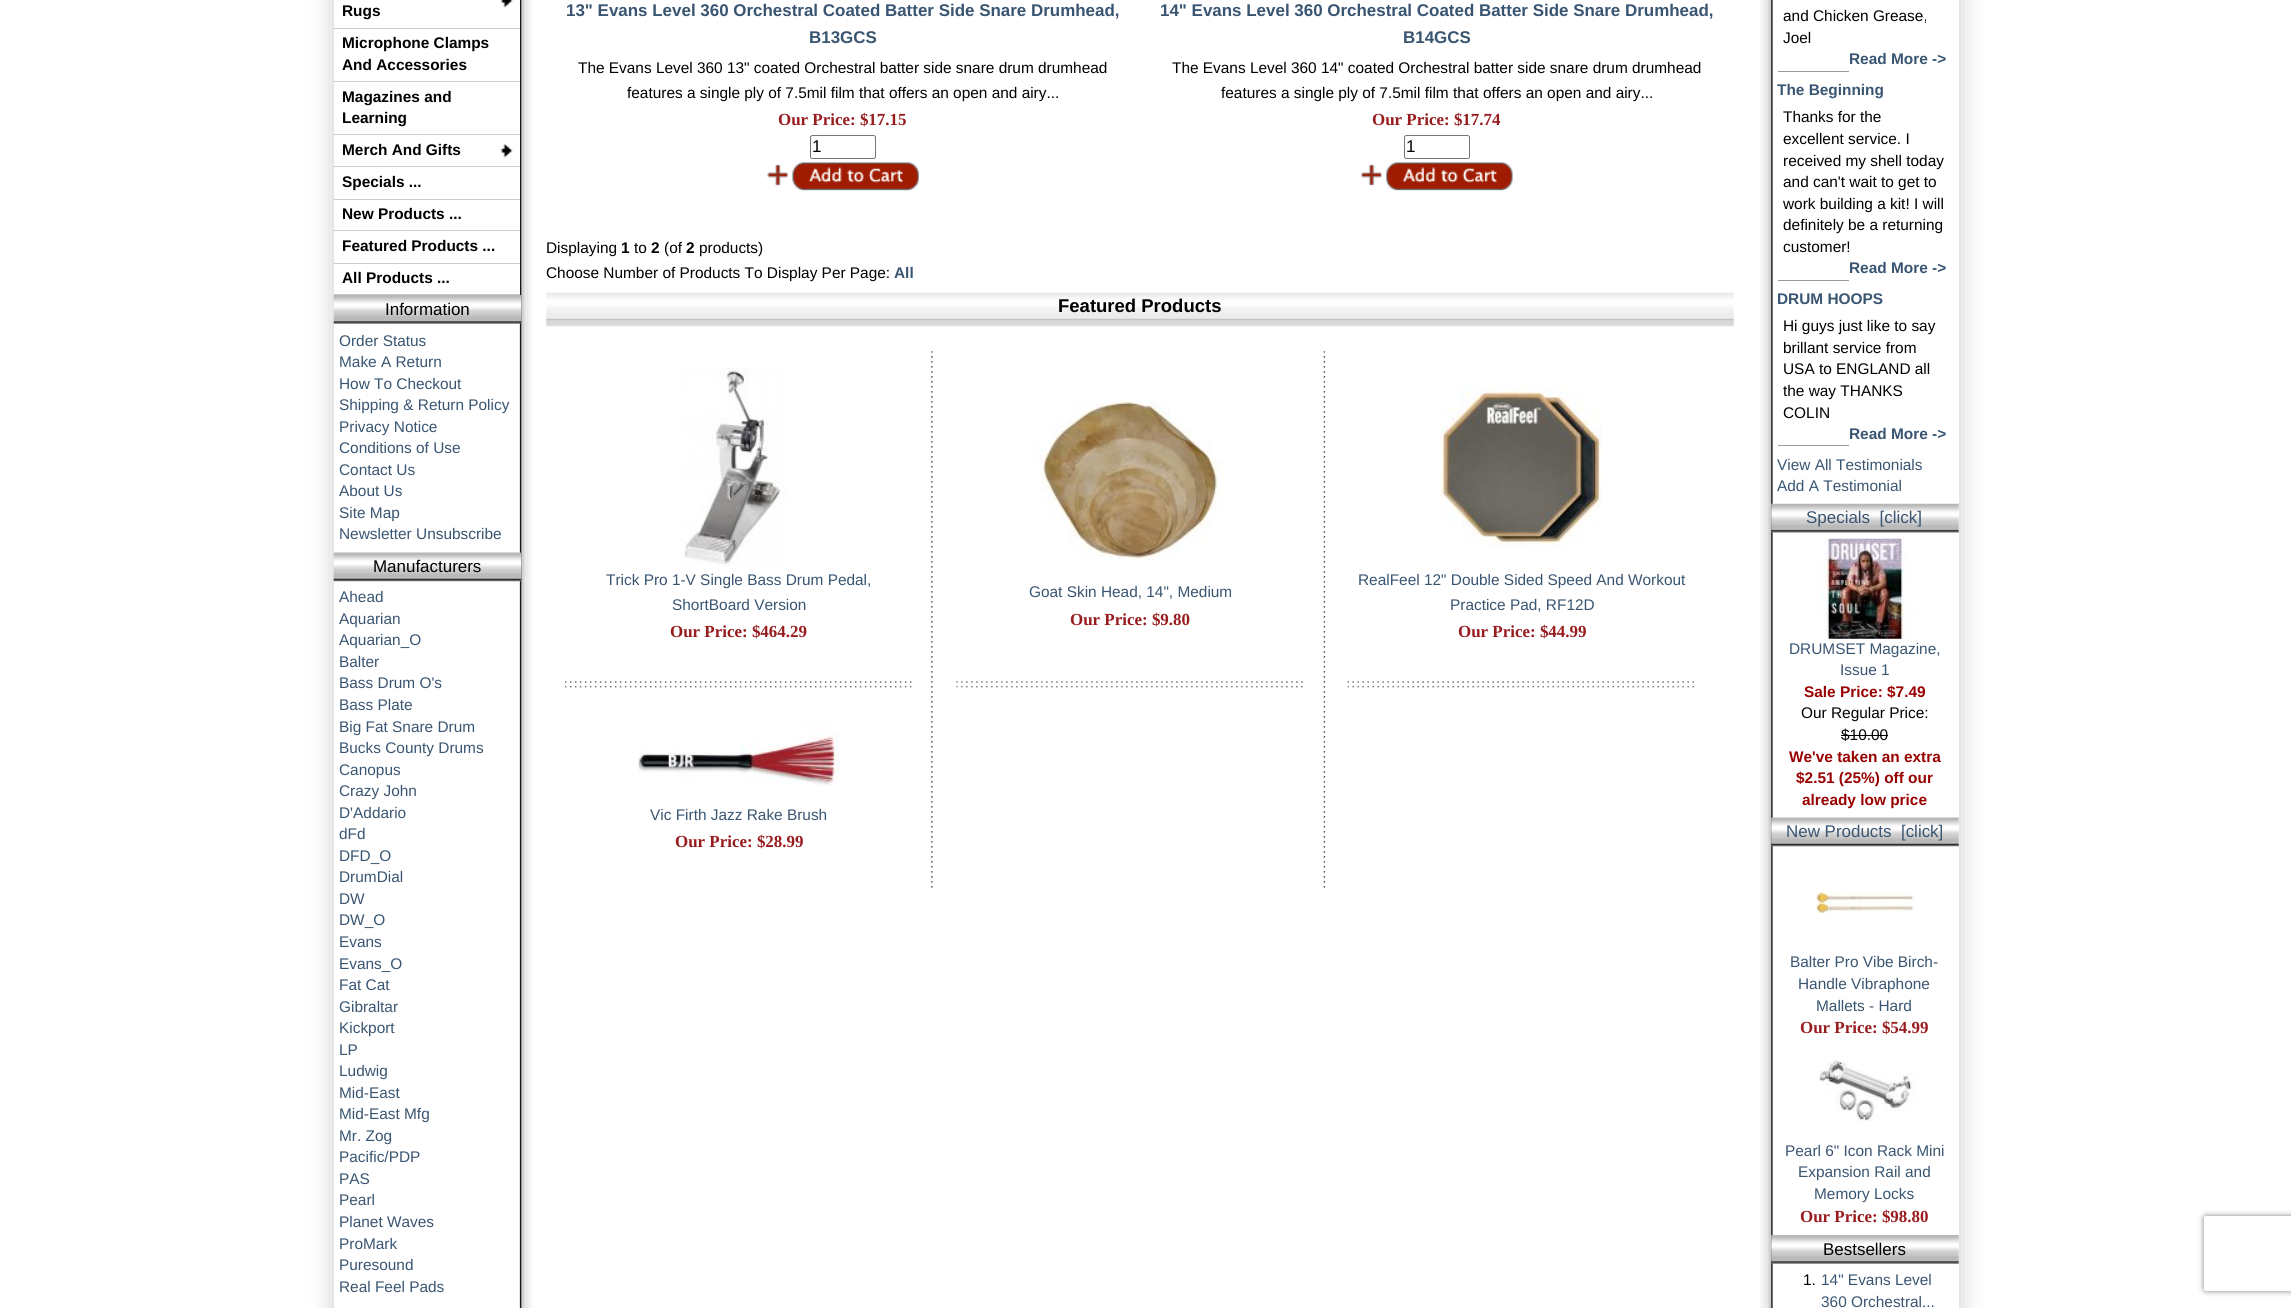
#include <cairo/cairo.h>
#include <math.h>
#include <stddef.h>

typedef struct { double x, y; const char *s; } line_t;
typedef struct { double x, y, w, h; unsigned color; } box_t;
static cairo_t *cr;

static void rgb(unsigned color)
{
	cairo_set_source_rgb(cr, (color >> 16) / 255.0, (color >> 8 & 255) / 255.0, (color & 255) / 255.0);
}

static void rrect(double x, double y, double w, double h, double r)
{
	cairo_new_sub_path(cr);
	cairo_arc(cr, x + w - r, y + h - r, r, 0, M_PI / 2);
	cairo_arc(cr, x + r, y + h - r, r, M_PI / 2, M_PI);
	cairo_arc(cr, x + r, y + r, r, M_PI, 1.5 * M_PI);
	cairo_arc(cr, x + w - r, y + r, r, 1.5 * M_PI, 2 * M_PI);
	cairo_close_path(cr);
}

static void soft_shadow(double x, double y, double w, double h, double r, double blur, double alpha)
{
	cairo_push_group_with_content(cr, CAIRO_CONTENT_ALPHA);
	cairo_set_operator(cr, CAIRO_OPERATOR_SOURCE);
	for (int i = 15; i >= -15 && fmin(w, h) + blur * i / 3 > 0; i -= 2) {
		double e = blur * i / 6;
		cairo_set_source_rgba(cr, 0, 0, 0, alpha * erfc((i - 1) / 8.5) / 2);
		rrect(x - e, y - e, w + 2 * e, h + 2 * e, fmax(0, fmin(r + e + blur * .6, fmin(w, h) / 2 + e)));
		cairo_fill(cr);
	}
	cairo_pattern_t *soft = cairo_pop_group(cr);
	cairo_mask(cr, soft);
	cairo_pattern_destroy(soft);
}

static void image(const char *path, double x, double y, double w, double h)
{
	cairo_surface_t *image = cairo_image_surface_create_from_png(path);
	cairo_save(cr);
	cairo_set_source_surface(cr, image, x, y);
	cairo_rectangle(cr, x, y, w, h);
	cairo_fill(cr);
	cairo_restore(cr);
	cairo_surface_destroy(image);
}

int main(void) {
	cairo_surface_t *surface = cairo_image_surface_create(CAIRO_FORMAT_RGB24, 2291, 1308);
	cr = cairo_create(surface);
	cairo_font_options_t *options = cairo_font_options_create();
	cairo_font_options_set_hint_metrics(options, CAIRO_HINT_METRICS_OFF);
	cairo_font_options_set_hint_style(options, CAIRO_HINT_STYLE_NONE);
	cairo_set_font_options(cr, options);
	cairo_set_miter_limit(cr, 4);
	rgb(0xffffff);
	cairo_paint(cr);
	rgb(0xcccccc);
	soft_shadow(334, -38, 1625, 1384, 0, 12.5, 1);
	rgb(0xffffff);
	cairo_rectangle(cr, 334, 0, 1625, 1308);
	cairo_fill(cr);
	image("img/1.png", 1760, 0, 13, 1308);
	image("img/2.png", 519, 0, 13, 1308);
	cairo_rectangle(cr, 519, 0, 1, 294);
	cairo_fill(cr);
	image("img/3.png", 501, 0, 12, 8);
	{
		static const box_t items[] = {
			{334, 28, 186, 1, 0xcccccc},
			{334, 81, 186, 1, 0xcccccc},
			{334, 134, 186, 1, 0xcccccc},
		};
		for (size_t i = 0; i < sizeof items / sizeof *items; i++) {
			rgb(items[i].color);
			cairo_rectangle(cr, items[i].x, items[i].y, items[i].w, items[i].h);
			cairo_fill(cr);
		}
	}
	image("img/4.png", 501, 143, 12, 15);
	{
		static const box_t items[] = {
			{334, 166, 186, 1, 0xcccccc},
			{334, 199, 186, 1, 0xcccccc},
			{334, 230, 186, 1, 0xcccccc},
			{334, 263, 186, 1, 0xcccccc},
			{334, 294, 186, 1, 0xcccccc},
		};
		for (size_t i = 0; i < sizeof items / sizeof *items; i++) {
			rgb(items[i].color);
			cairo_rectangle(cr, items[i].x, items[i].y, items[i].w, items[i].h);
			cairo_fill(cr);
		}
	}
	image("img/5.png", 333, 295, 189, 29);
	image("img/6.png", 333, 552, 189, 30);
	rrect(810.5, 135.5, 65, 23, 2);
	rgb(0x767676);
	cairo_set_line_width(cr, 1);
	cairo_stroke(cr);
	image("img/7.png", 767, 162, 152, 29);
	rrect(1404.5, 135.5, 65, 23, 2);
	cairo_stroke(cr);
	image("img/8.png", 1361, 162, 152, 29);
	image("img/9.png", 546, 292, 1188, 35);
	image("img/10.png", 679, 367, 108, 199);
	image("img/11.png", 931, 351, 2, 537);
	image("img/12.png", 1034, 399, 192, 161);
	image("img/13.png", 1323, 351, 3, 537);
	image("img/14.png", 1440, 387, 162, 160);
	image("img/15.png", 565, 681, 347, 7);
	image("img/16.png", 956, 681, 347, 7);
	image("img/17.png", 1347, 681, 347, 7);
	image("img/18.png", 638, 722, 201, 64);
	{
		static const box_t items[] = {
			{1778, 71, 71, 1, 0x9a9a9a},
			{1778, 280, 71, 1, 0x9a9a9a},
			{1778, 445, 71, 1, 0x9a9a9a},
		};
		for (size_t i = 0; i < sizeof items / sizeof *items; i++) {
			rgb(items[i].color);
			cairo_rectangle(cr, items[i].x, items[i].y, items[i].w, items[i].h);
			cairo_fill(cr);
		}
	}
	image("img/19.png", 1771, 503, 188, 30);
	image("img/20.png", 1815, 538, 100, 101);
	rgb(0x000000);
	cairo_rectangle(cr, 1841, 735, 47, 1);
	cairo_fill(cr);
	image("img/21.png", 1771, 817, 188, 30);
	image("img/22.png", 1815, 891, 100, 23);
	image("img/23.png", 1818, 1059, 97, 62);
	image("img/24.png", 1771, 1235, 188, 29);
	cairo_save(cr);
	cairo_set_fill_rule(cr, CAIRO_FILL_RULE_EVEN_ODD);
	cairo_new_path(cr);
	cairo_move_to(cr, 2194, 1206);
	cairo_line_to(cr, 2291, 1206);
	cairo_line_to(cr, 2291, 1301);
	cairo_line_to(cr, 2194, 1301);
	cairo_close_path(cr);
	cairo_move_to(cr, 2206.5, 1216);
	cairo_line_to(cr, 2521.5, 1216);
	cairo_curve_to(cr, 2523, 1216, 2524, 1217, 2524, 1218.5);
	cairo_line_to(cr, 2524, 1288.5);
	cairo_curve_to(cr, 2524, 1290, 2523, 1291, 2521.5, 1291);
	cairo_line_to(cr, 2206.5, 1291);
	cairo_curve_to(cr, 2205, 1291, 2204, 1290, 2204, 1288.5);
	cairo_line_to(cr, 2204, 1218.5);
	cairo_curve_to(cr, 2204, 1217, 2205, 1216, 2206.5, 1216);
	cairo_close_path(cr);
	cairo_clip(cr);
	rgb(0x808080);
	soft_shadow(2204, 1216, 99, 75, 2.5, 3, 1);
	cairo_restore(cr);
	cairo_select_font_face(cr, "Liberation Sans", CAIRO_FONT_SLANT_NORMAL, CAIRO_FONT_WEIGHT_BOLD);
	cairo_set_font_size(cr, 15.4);
	{
		static const line_t items[] = {
			{342, 16, "Rugs"},
			{342, 48, "Microphone Clamps"},
			{342, 70, "And Accessories"},
			{342, 102, "Magazines and"},
			{342, 123, "Learning"},
			{342, 155, "Merch And Gifts"},
			{342, 187, "Specials ..."},
			{342, 219, "New Products ..."},
			{342, 251, "Featured Products ..."},
			{342, 283, "All Products ..."},
		};
		for (size_t i = 0; i < sizeof items / sizeof *items; i++) {
			cairo_move_to(cr, items[i].x, items[i].y);
			cairo_show_text(cr, items[i].s);
		}
	}
	cairo_select_font_face(cr, "Liberation Sans", CAIRO_FONT_SLANT_NORMAL, CAIRO_FONT_WEIGHT_NORMAL);
	cairo_set_font_size(cr, 16.95);
	cairo_move_to(cr, 385, 315);
	cairo_show_text(cr, "Information");
	cairo_set_font_size(cr, 15.4);
	rgb(0x395571);
	{
		static const line_t items[] = {
			{339, 346, "Order Status"},
			{339, 367, "Make A Return"},
			{339, 389, "How To Checkout"},
			{339, 410, "Shipping & Return Policy"},
			{339, 432, "Privacy Notice"},
			{339, 453, "Conditions of Use"},
			{339, 475, "Contact Us"},
			{339, 496, "About Us"},
			{339, 518, "Site Map"},
			{339, 539, "Newsletter Unsubscribe"},
		};
		for (size_t i = 0; i < sizeof items / sizeof *items; i++) {
			cairo_move_to(cr, items[i].x, items[i].y);
			cairo_show_text(cr, items[i].s);
		}
	}
	cairo_set_font_size(cr, 16.95);
	rgb(0x000000);
	cairo_move_to(cr, 373, 572);
	cairo_show_text(cr, "Manufacturers");
	cairo_set_font_size(cr, 15.4);
	rgb(0x395571);
	{
		static const line_t items[] = {
			{339, 602, "Ahead"},
			{339, 624, "Aquarian"},
			{339, 645, "Aquarian_O"},
			{339, 667, "Balter"},
			{339, 688, "Bass Drum O's"},
			{339, 710, "Bass Plate"},
			{339, 732, "Big Fat Snare Drum"},
			{339, 753, "Bucks County Drums"},
			{339, 775, "Canopus"},
			{339, 796, "Crazy John"},
			{339, 818, "D'Addario"},
			{339, 839, "dFd"},
			{339, 861, "DFD_O"},
			{339, 882, "DrumDial"},
			{339, 904, "DW"},
			{339, 925, "DW_O"},
			{339, 947, "Evans"},
			{339, 969, "Evans_O"},
			{339, 990, "Fat Cat"},
			{339, 1012, "Gibraltar"},
			{339, 1033, "Kickport"},
			{339, 1055, "LP"},
			{339, 1076, "Ludwig"},
			{339, 1098, "Mid-East"},
			{339, 1119, "Mid-East Mfg"},
			{339, 1141, "Mr. Zog"},
			{339, 1162, "Pacific/PDP"},
			{339, 1184, "PAS"},
			{339, 1205, "Pearl"},
			{339, 1227, "Planet Waves"},
			{339, 1249, "ProMark"},
			{339, 1270, "Puresound"},
			{339, 1292, "Real Feel Pads"},
		};
		for (size_t i = 0; i < sizeof items / sizeof *items; i++) {
			cairo_move_to(cr, items[i].x, items[i].y);
			cairo_show_text(cr, items[i].s);
		}
	}
	cairo_select_font_face(cr, "Liberation Sans", CAIRO_FONT_SLANT_NORMAL, CAIRO_FONT_WEIGHT_BOLD);
	cairo_set_font_size(cr, 16.95);
	cairo_move_to(cr, 566, 16);
	cairo_show_text(cr, "13\" Evans Level 360 Orchestral Coated Batter Side Snare Drumhead,");
	cairo_move_to(cr, 809, 43);
	cairo_show_text(cr, "B13GCS");
	cairo_select_font_face(cr, "Liberation Sans", CAIRO_FONT_SLANT_NORMAL, CAIRO_FONT_WEIGHT_NORMAL);
	cairo_set_font_size(cr, 15.4);
	rgb(0x000000);
	cairo_move_to(cr, 578, 73);
	cairo_show_text(cr, "The Evans Level 360 13\" coated Orchestral batter side snare drum drumhead");
	cairo_move_to(cr, 627, 98);
	cairo_show_text(cr, "features a single ply of 7.5mil film that offers an open and airy...");
	cairo_select_font_face(cr, "Liberation Serif", CAIRO_FONT_SLANT_NORMAL, CAIRO_FONT_WEIGHT_BOLD);
	cairo_set_font_size(cr, 16.95);
	rgb(0x981b1e);
	cairo_move_to(cr, 778, 125);
	cairo_show_text(cr, "Our Price: $17.15");
	cairo_select_font_face(cr, "Liberation Sans", CAIRO_FONT_SLANT_NORMAL, CAIRO_FONT_WEIGHT_NORMAL);
	cairo_set_font_size(cr, 17);
	rgb(0x000000);
	cairo_move_to(cr, 812, 152);
	cairo_show_text(cr, "1");
	cairo_select_font_face(cr, "Liberation Sans", CAIRO_FONT_SLANT_NORMAL, CAIRO_FONT_WEIGHT_BOLD);
	cairo_set_font_size(cr, 16.95);
	rgb(0x395571);
	cairo_move_to(cr, 1160, 16);
	cairo_show_text(cr, "14\" Evans Level 360 Orchestral Coated Batter Side Snare Drumhead,");
	cairo_move_to(cr, 1403, 43);
	cairo_show_text(cr, "B14GCS");
	cairo_select_font_face(cr, "Liberation Sans", CAIRO_FONT_SLANT_NORMAL, CAIRO_FONT_WEIGHT_NORMAL);
	cairo_set_font_size(cr, 15.4);
	rgb(0x000000);
	cairo_move_to(cr, 1172, 73);
	cairo_show_text(cr, "The Evans Level 360 14\" coated Orchestral batter side snare drum drumhead");
	cairo_move_to(cr, 1221, 98);
	cairo_show_text(cr, "features a single ply of 7.5mil film that offers an open and airy...");
	cairo_select_font_face(cr, "Liberation Serif", CAIRO_FONT_SLANT_NORMAL, CAIRO_FONT_WEIGHT_BOLD);
	cairo_set_font_size(cr, 16.95);
	rgb(0x981b1e);
	cairo_move_to(cr, 1372, 125);
	cairo_show_text(cr, "Our Price: $17.74");
	cairo_select_font_face(cr, "Liberation Sans", CAIRO_FONT_SLANT_NORMAL, CAIRO_FONT_WEIGHT_NORMAL);
	cairo_set_font_size(cr, 17);
	rgb(0x000000);
	cairo_move_to(cr, 1406, 152);
	cairo_show_text(cr, "1");
	cairo_set_font_size(cr, 15.4);
	cairo_move_to(cr, 546, 253);
	cairo_show_text(cr, "Displaying");
	cairo_select_font_face(cr, "Liberation Sans", CAIRO_FONT_SLANT_NORMAL, CAIRO_FONT_WEIGHT_BOLD);
	cairo_move_to(cr, 621, 253);
	cairo_show_text(cr, "1");
	cairo_select_font_face(cr, "Liberation Sans", CAIRO_FONT_SLANT_NORMAL, CAIRO_FONT_WEIGHT_NORMAL);
	cairo_move_to(cr, 634, 253);
	cairo_show_text(cr, "to");
	cairo_select_font_face(cr, "Liberation Sans", CAIRO_FONT_SLANT_NORMAL, CAIRO_FONT_WEIGHT_BOLD);
	cairo_move_to(cr, 651, 253);
	cairo_show_text(cr, "2");
	cairo_select_font_face(cr, "Liberation Sans", CAIRO_FONT_SLANT_NORMAL, CAIRO_FONT_WEIGHT_NORMAL);
	cairo_move_to(cr, 664, 253);
	cairo_show_text(cr, "(of");
	cairo_select_font_face(cr, "Liberation Sans", CAIRO_FONT_SLANT_NORMAL, CAIRO_FONT_WEIGHT_BOLD);
	cairo_move_to(cr, 686, 253);
	cairo_show_text(cr, "2");
	cairo_select_font_face(cr, "Liberation Sans", CAIRO_FONT_SLANT_NORMAL, CAIRO_FONT_WEIGHT_NORMAL);
	cairo_move_to(cr, 699, 253);
	cairo_show_text(cr, "products)");
	cairo_move_to(cr, 546, 278);
	cairo_show_text(cr, "Choose Number of Products To Display Per Page:");
	cairo_select_font_face(cr, "Liberation Sans", CAIRO_FONT_SLANT_NORMAL, CAIRO_FONT_WEIGHT_BOLD);
	rgb(0x395571);
	cairo_move_to(cr, 894, 278);
	cairo_show_text(cr, "All");
	cairo_set_font_size(cr, 18.5);
	rgb(0x000000);
	cairo_move_to(cr, 1058, 312);
	cairo_show_text(cr, "Featured Products");
	cairo_select_font_face(cr, "Liberation Sans", CAIRO_FONT_SLANT_NORMAL, CAIRO_FONT_WEIGHT_NORMAL);
	cairo_set_font_size(cr, 15.4);
	rgb(0x395571);
	cairo_move_to(cr, 606, 585);
	cairo_show_text(cr, "Trick Pro 1-V Single Bass Drum Pedal,");
	cairo_move_to(cr, 672, 610);
	cairo_show_text(cr, "ShortBoard Version");
	cairo_select_font_face(cr, "Liberation Serif", CAIRO_FONT_SLANT_NORMAL, CAIRO_FONT_WEIGHT_BOLD);
	cairo_set_font_size(cr, 16.95);
	rgb(0x981b1e);
	cairo_move_to(cr, 670, 637);
	cairo_show_text(cr, "Our Price: $464.29");
	cairo_select_font_face(cr, "Liberation Sans", CAIRO_FONT_SLANT_NORMAL, CAIRO_FONT_WEIGHT_NORMAL);
	cairo_set_font_size(cr, 15.4);
	rgb(0x395571);
	cairo_move_to(cr, 1029, 597);
	cairo_show_text(cr, "Goat Skin Head, 14\", Medium");
	cairo_select_font_face(cr, "Liberation Serif", CAIRO_FONT_SLANT_NORMAL, CAIRO_FONT_WEIGHT_BOLD);
	cairo_set_font_size(cr, 16.95);
	rgb(0x981b1e);
	cairo_move_to(cr, 1070, 625);
	cairo_show_text(cr, "Our Price: $9.80");
	cairo_select_font_face(cr, "Liberation Sans", CAIRO_FONT_SLANT_NORMAL, CAIRO_FONT_WEIGHT_NORMAL);
	cairo_set_font_size(cr, 15.4);
	rgb(0x395571);
	cairo_move_to(cr, 1358, 585);
	cairo_show_text(cr, "RealFeel 12\" Double Sided Speed And Workout");
	cairo_move_to(cr, 1450, 610);
	cairo_show_text(cr, "Practice Pad, RF12D");
	cairo_select_font_face(cr, "Liberation Serif", CAIRO_FONT_SLANT_NORMAL, CAIRO_FONT_WEIGHT_BOLD);
	cairo_set_font_size(cr, 16.95);
	rgb(0x981b1e);
	cairo_move_to(cr, 1458, 637);
	cairo_show_text(cr, "Our Price: $44.99");
	cairo_select_font_face(cr, "Liberation Sans", CAIRO_FONT_SLANT_NORMAL, CAIRO_FONT_WEIGHT_NORMAL);
	cairo_set_font_size(cr, 15.4);
	rgb(0x395571);
	cairo_move_to(cr, 650, 820);
	cairo_show_text(cr, "Vic Firth Jazz Rake Brush");
	cairo_select_font_face(cr, "Liberation Serif", CAIRO_FONT_SLANT_NORMAL, CAIRO_FONT_WEIGHT_BOLD);
	cairo_set_font_size(cr, 16.95);
	rgb(0x981b1e);
	cairo_move_to(cr, 675, 847);
	cairo_show_text(cr, "Our Price: $28.99");
	cairo_select_font_face(cr, "Liberation Sans", CAIRO_FONT_SLANT_NORMAL, CAIRO_FONT_WEIGHT_NORMAL);
	cairo_set_font_size(cr, 15.4);
	rgb(0x000000);
	cairo_move_to(cr, 1783, 21);
	cairo_show_text(cr, "and Chicken Grease,");
	cairo_move_to(cr, 1783, 43);
	cairo_show_text(cr, "Joel");
	cairo_select_font_face(cr, "Liberation Sans", CAIRO_FONT_SLANT_NORMAL, CAIRO_FONT_WEIGHT_BOLD);
	rgb(0x395571);
	cairo_move_to(cr, 1849, 64);
	cairo_show_text(cr, "Read More ->");
	cairo_move_to(cr, 1777, 95);
	cairo_show_text(cr, "The Beginning");
	cairo_select_font_face(cr, "Liberation Sans", CAIRO_FONT_SLANT_NORMAL, CAIRO_FONT_WEIGHT_NORMAL);
	rgb(0x000000);
	{
		static const line_t items[] = {
			{1783, 122, "Thanks for the"},
			{1783, 144, "excellent service. I"},
			{1783, 166, "received my shell today"},
			{1783, 187, "and can't wait to get to"},
			{1783, 209, "work building a kit! I will"},
			{1783, 230, "definitely be a returning"},
			{1783, 252, "customer!"},
		};
		for (size_t i = 0; i < sizeof items / sizeof *items; i++) {
			cairo_move_to(cr, items[i].x, items[i].y);
			cairo_show_text(cr, items[i].s);
		}
	}
	cairo_select_font_face(cr, "Liberation Sans", CAIRO_FONT_SLANT_NORMAL, CAIRO_FONT_WEIGHT_BOLD);
	rgb(0x395571);
	cairo_move_to(cr, 1849, 273);
	cairo_show_text(cr, "Read More ->");
	cairo_move_to(cr, 1777, 304);
	cairo_show_text(cr, "DRUM HOOPS");
	cairo_select_font_face(cr, "Liberation Sans", CAIRO_FONT_SLANT_NORMAL, CAIRO_FONT_WEIGHT_NORMAL);
	rgb(0x000000);
	{
		static const line_t items[] = {
			{1783, 331, "Hi guys just like to say"},
			{1783, 353, "brillant service from"},
			{1783, 374, "USA to ENGLAND all"},
			{1783, 396, "the way THANKS"},
			{1783, 418, "COLIN"},
		};
		for (size_t i = 0; i < sizeof items / sizeof *items; i++) {
			cairo_move_to(cr, items[i].x, items[i].y);
			cairo_show_text(cr, items[i].s);
		}
	}
	cairo_select_font_face(cr, "Liberation Sans", CAIRO_FONT_SLANT_NORMAL, CAIRO_FONT_WEIGHT_BOLD);
	rgb(0x395571);
	cairo_move_to(cr, 1849, 439);
	cairo_show_text(cr, "Read More ->");
	cairo_select_font_face(cr, "Liberation Sans", CAIRO_FONT_SLANT_NORMAL, CAIRO_FONT_WEIGHT_NORMAL);
	cairo_move_to(cr, 1777, 470);
	cairo_show_text(cr, "View All Testimonials");
	cairo_move_to(cr, 1777, 491);
	cairo_show_text(cr, "Add A Testimonial");
	cairo_set_font_size(cr, 16.95);
	cairo_move_to(cr, 1806, 523);
	cairo_show_text(cr, "Specials  [click]");
	cairo_set_font_size(cr, 15.4);
	cairo_move_to(cr, 1789, 654);
	cairo_show_text(cr, "DRUMSET Magazine,");
	cairo_move_to(cr, 1840, 675);
	cairo_show_text(cr, "Issue 1");
	cairo_select_font_face(cr, "Liberation Sans", CAIRO_FONT_SLANT_NORMAL, CAIRO_FONT_WEIGHT_BOLD);
	rgb(0x990000);
	cairo_move_to(cr, 1804, 697);
	cairo_show_text(cr, "Sale Price: $7.49");
	cairo_select_font_face(cr, "Liberation Sans", CAIRO_FONT_SLANT_NORMAL, CAIRO_FONT_WEIGHT_NORMAL);
	rgb(0x000000);
	cairo_move_to(cr, 1801, 718);
	cairo_show_text(cr, "Our Regular Price:");
	cairo_move_to(cr, 1841, 740);
	cairo_show_text(cr, "$10.00");
	cairo_select_font_face(cr, "Liberation Sans", CAIRO_FONT_SLANT_NORMAL, CAIRO_FONT_WEIGHT_BOLD);
	rgb(0x990000);
	{
		static const line_t items[] = {
			{1789, 762, "We've taken an extra"},
			{1796, 783, "$2.51 (25%) off our"},
			{1802, 805, "already low price"},
		};
		for (size_t i = 0; i < sizeof items / sizeof *items; i++) {
			cairo_move_to(cr, items[i].x, items[i].y);
			cairo_show_text(cr, items[i].s);
		}
	}
	cairo_select_font_face(cr, "Liberation Sans", CAIRO_FONT_SLANT_NORMAL, CAIRO_FONT_WEIGHT_NORMAL);
	cairo_set_font_size(cr, 16.95);
	rgb(0x395571);
	cairo_move_to(cr, 1786, 837);
	cairo_show_text(cr, "New Products  [click]");
	cairo_set_font_size(cr, 15.4);
	{
		static const line_t items[] = {
			{1790, 967, "Balter Pro Vibe Birch-"},
			{1798, 989, "Handle Vibraphone"},
			{1816, 1011, "Mallets - Hard"},
		};
		for (size_t i = 0; i < sizeof items / sizeof *items; i++) {
			cairo_move_to(cr, items[i].x, items[i].y);
			cairo_show_text(cr, items[i].s);
		}
	}
	cairo_select_font_face(cr, "Liberation Serif", CAIRO_FONT_SLANT_NORMAL, CAIRO_FONT_WEIGHT_BOLD);
	cairo_set_font_size(cr, 16.95);
	rgb(0x981b1e);
	cairo_move_to(cr, 1800, 1033);
	cairo_show_text(cr, "Our Price: $54.99");
	cairo_select_font_face(cr, "Liberation Sans", CAIRO_FONT_SLANT_NORMAL, CAIRO_FONT_WEIGHT_NORMAL);
	cairo_set_font_size(cr, 15.4);
	rgb(0x395571);
	{
		static const line_t items[] = {
			{1785, 1156, "Pearl 6\" Icon Rack Mini"},
			{1798, 1177, "Expansion Rail and"},
			{1814, 1199, "Memory Locks"},
		};
		for (size_t i = 0; i < sizeof items / sizeof *items; i++) {
			cairo_move_to(cr, items[i].x, items[i].y);
			cairo_show_text(cr, items[i].s);
		}
	}
	cairo_select_font_face(cr, "Liberation Serif", CAIRO_FONT_SLANT_NORMAL, CAIRO_FONT_WEIGHT_BOLD);
	cairo_set_font_size(cr, 16.95);
	rgb(0x981b1e);
	cairo_move_to(cr, 1800, 1222);
	cairo_show_text(cr, "Our Price: $98.80");
	cairo_select_font_face(cr, "Liberation Sans", CAIRO_FONT_SLANT_NORMAL, CAIRO_FONT_WEIGHT_NORMAL);
	rgb(0x000000);
	cairo_move_to(cr, 1823, 1255);
	cairo_show_text(cr, "Bestsellers");
	cairo_set_font_size(cr, 15.4);
	cairo_move_to(cr, 1803, 1285);
	cairo_show_text(cr, "1.");
	rgb(0x395571);
	cairo_move_to(cr, 1821, 1285);
	cairo_show_text(cr, "14\" Evans Level");
	cairo_move_to(cr, 1821, 1307);
	cairo_show_text(cr, "360 Orchestral...");
	cairo_surface_write_to_png(surface, "page.png");
	cairo_font_options_destroy(options);
	cairo_destroy(cr);
	cairo_surface_destroy(surface);
	return 0;
}
